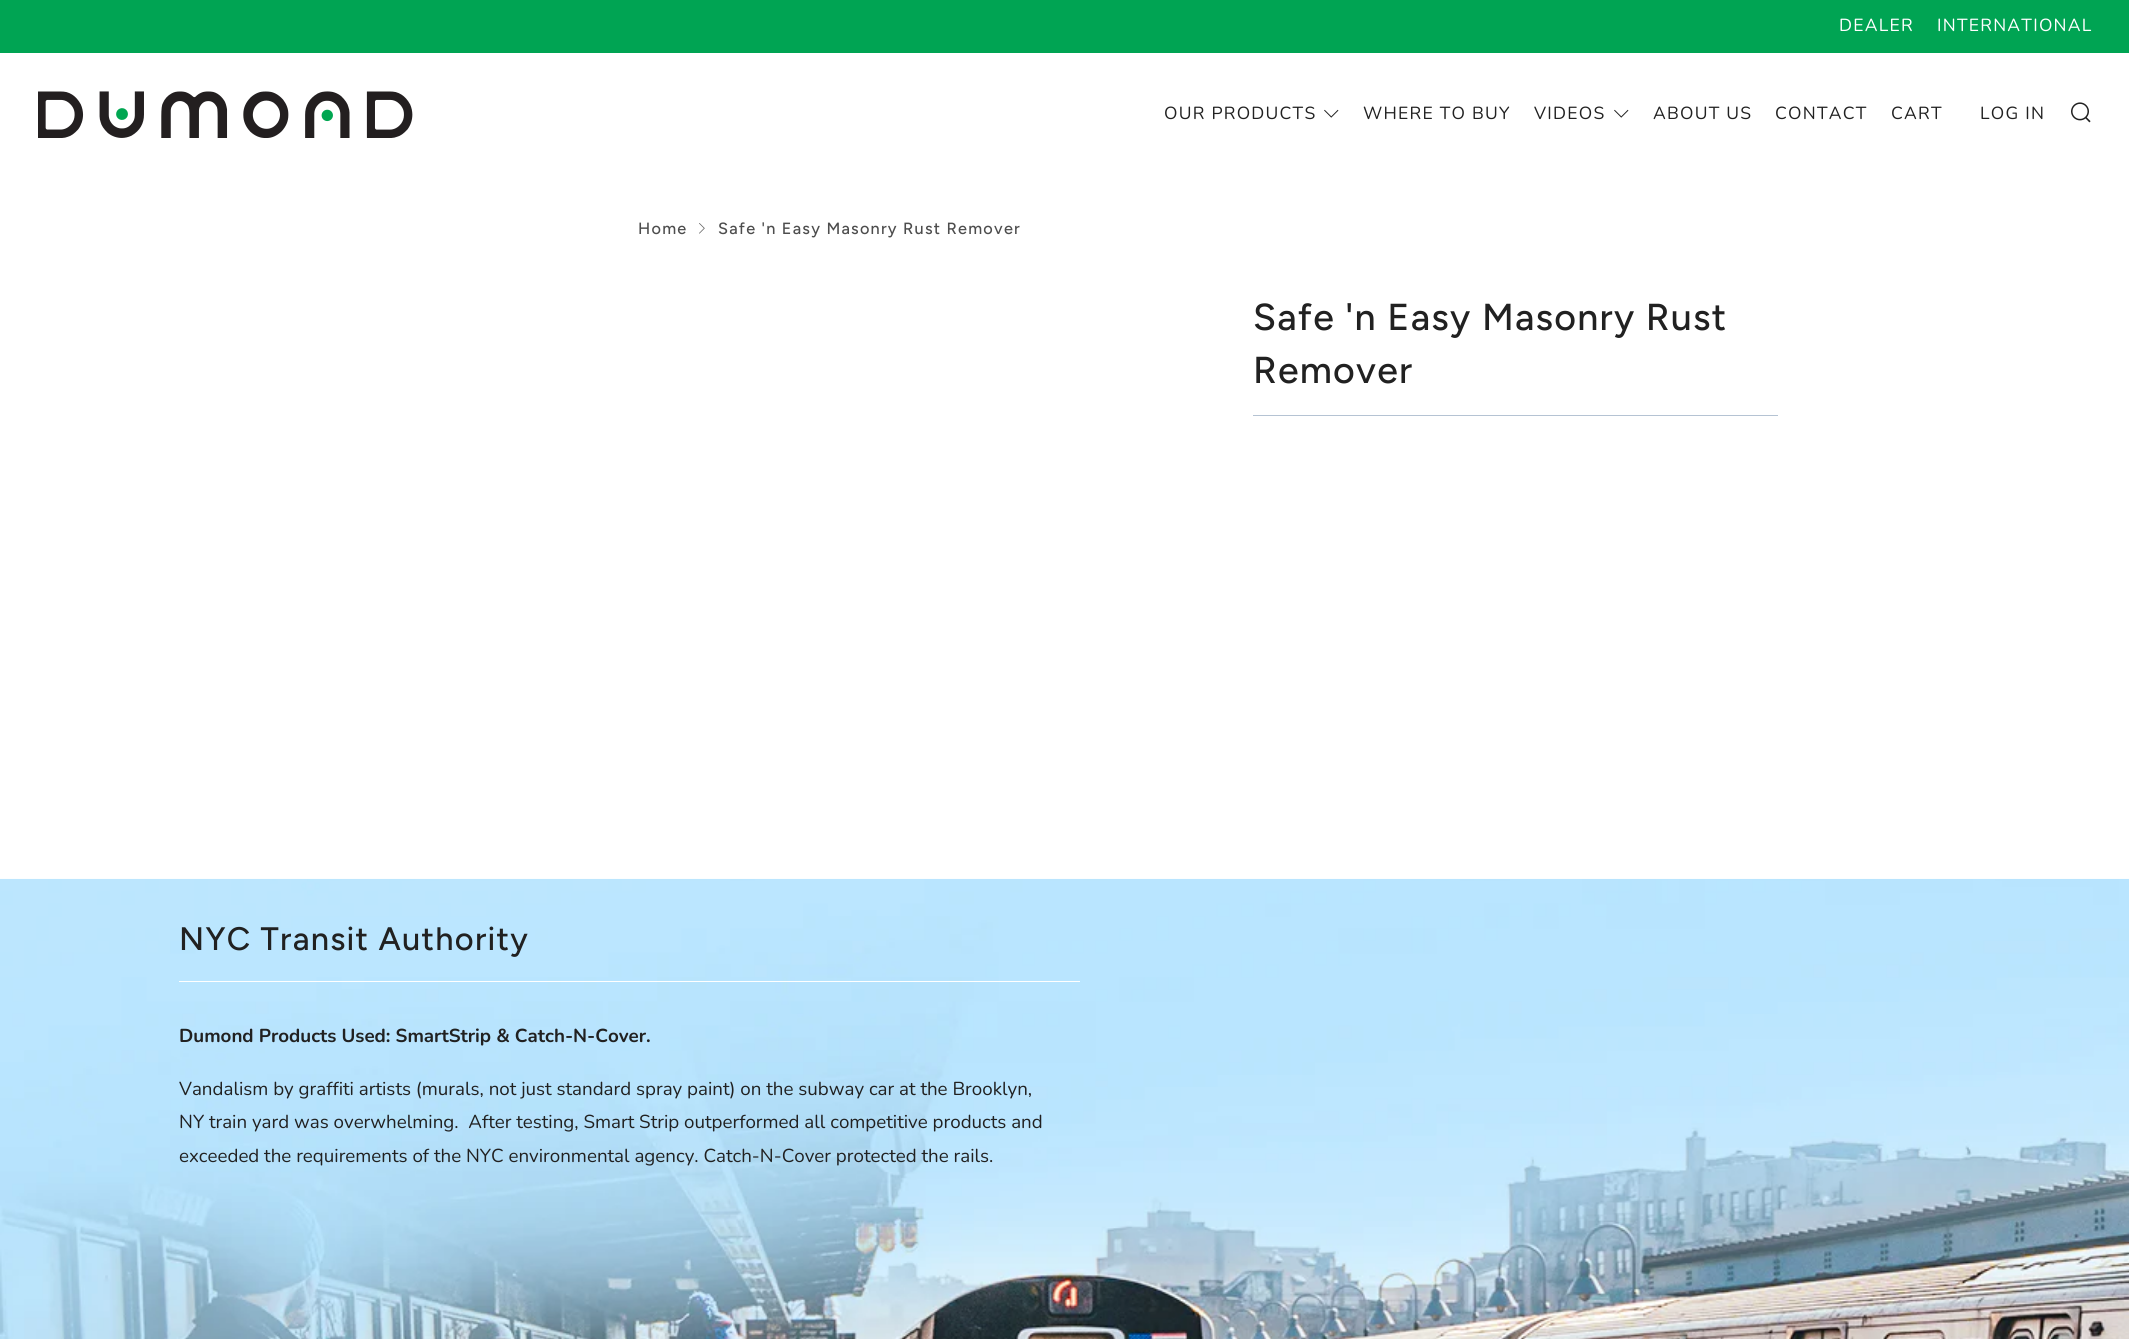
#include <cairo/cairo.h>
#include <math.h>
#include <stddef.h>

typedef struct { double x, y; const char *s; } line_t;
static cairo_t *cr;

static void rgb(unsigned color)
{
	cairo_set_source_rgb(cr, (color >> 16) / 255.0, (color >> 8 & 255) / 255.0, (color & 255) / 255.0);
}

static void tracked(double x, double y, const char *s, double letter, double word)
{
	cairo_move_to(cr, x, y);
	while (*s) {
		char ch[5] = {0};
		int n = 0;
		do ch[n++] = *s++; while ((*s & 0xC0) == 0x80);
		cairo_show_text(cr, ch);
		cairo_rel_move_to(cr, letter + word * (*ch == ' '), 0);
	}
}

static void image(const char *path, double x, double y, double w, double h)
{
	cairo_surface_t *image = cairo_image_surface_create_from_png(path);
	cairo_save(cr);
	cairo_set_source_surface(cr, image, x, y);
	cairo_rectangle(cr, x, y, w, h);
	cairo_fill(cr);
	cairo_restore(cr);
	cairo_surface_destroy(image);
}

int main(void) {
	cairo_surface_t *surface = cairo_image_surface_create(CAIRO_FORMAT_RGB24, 2129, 1339);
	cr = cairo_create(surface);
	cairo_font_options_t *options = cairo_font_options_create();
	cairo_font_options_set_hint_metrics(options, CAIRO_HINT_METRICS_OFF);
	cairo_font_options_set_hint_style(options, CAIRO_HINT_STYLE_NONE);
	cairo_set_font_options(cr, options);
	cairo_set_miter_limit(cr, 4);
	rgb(0xffffff);
	cairo_paint(cr);
	rgb(0x00a453);
	cairo_rectangle(cr, 0, 0, 2129, 53);
	cairo_fill(cr);
	image("img/1.png", 38, 91, 375, 47);
	image("img/2.png", 1324, 109, 15, 9);
	image("img/2.png", 1614, 109, 15, 9);
	image("img/3.png", 2071, 102, 20, 21);
	image("img/4.png", 699, 223, 6, 11);
	rgb(0xb5c3d3);
	cairo_rectangle(cr, 1253, 415, 525, 1);
	cairo_fill(cr);
	image("img/5.png", 0, 878, 2129, 461);
	rgb(0xffffff);
	cairo_rectangle(cr, 179, 981, 901, 1);
	cairo_fill(cr);
	cairo_select_font_face(cr, "Nunito", CAIRO_FONT_SLANT_NORMAL, CAIRO_FONT_WEIGHT_NORMAL);
	cairo_set_font_size(cr, 17.5);
	tracked(1839, 31, "DEALER", 1.25, 0);
	tracked(1937, 31, "INTERNATIONAL", 1.25, 0);
	rgb(0x212121);
	{
		static const line_t items[] = {
			{1164, 119, "OUR PRODUCTS"},
			{1363, 119, "WHERE TO BUY"},
			{1534, 119, "VIDEOS"},
			{1653, 119, "ABOUT US"},
			{1775, 119, "CONTACT"},
			{1891, 119, "CART"},
			{1980, 119, "LOG IN"},
		};
		for (size_t i = 0; i < sizeof items / sizeof *items; i++) {
			tracked(items[i].x, items[i].y, items[i].s, 1.25, 0);
		}
	}
	cairo_select_font_face(cr, "Figtree Medium", CAIRO_FONT_SLANT_NORMAL, CAIRO_FONT_WEIGHT_NORMAL);
	cairo_set_font_size(cr, 16.25);
	rgb(0x4d4d4d);
	tracked(638, 234, "Home", 1.25, 0);
	tracked(718, 234, "Safe 'n Easy Masonry Rust Remover", 1.25, 0);
	cairo_set_font_size(cr, 37.5);
	rgb(0x212121);
	tracked(1253, 330, "Safe 'n Easy Masonry Rust", 1.25, 0);
	tracked(1253, 383, "Remover", 1.25, 0);
	cairo_set_font_size(cr, 32.5);
	tracked(179, 950, "NYC Transit Authority", 1.25, 0);
	cairo_select_font_face(cr, "Nunito", CAIRO_FONT_SLANT_NORMAL, CAIRO_FONT_WEIGHT_BOLD);
	cairo_set_font_size(cr, 18.75);
	cairo_move_to(cr, 179, 1042);
	cairo_show_text(cr, "Dumond Products Used: SmartStrip & Catch-N-Cover.");
	cairo_select_font_face(cr, "Nunito", CAIRO_FONT_SLANT_NORMAL, CAIRO_FONT_WEIGHT_NORMAL);
	{
		static const line_t items[] = {
			{179, 1095, "Vandalism by graffiti artists (murals, not just standard spray paint) on the subway car at the Brooklyn,"},
			{179, 1128, "NY train yard was overwhelming.  After testing, Smart Strip outperformed all competitive products and"},
			{179, 1162, "exceeded the requirements of the NYC environmental agency. Catch-N-Cover protected the rails."},
		};
		for (size_t i = 0; i < sizeof items / sizeof *items; i++) {
			cairo_move_to(cr, items[i].x, items[i].y);
			cairo_show_text(cr, items[i].s);
		}
	}
	cairo_surface_write_to_png(surface, "page.png");
	cairo_font_options_destroy(options);
	cairo_destroy(cr);
	cairo_surface_destroy(surface);
	return 0;
}
